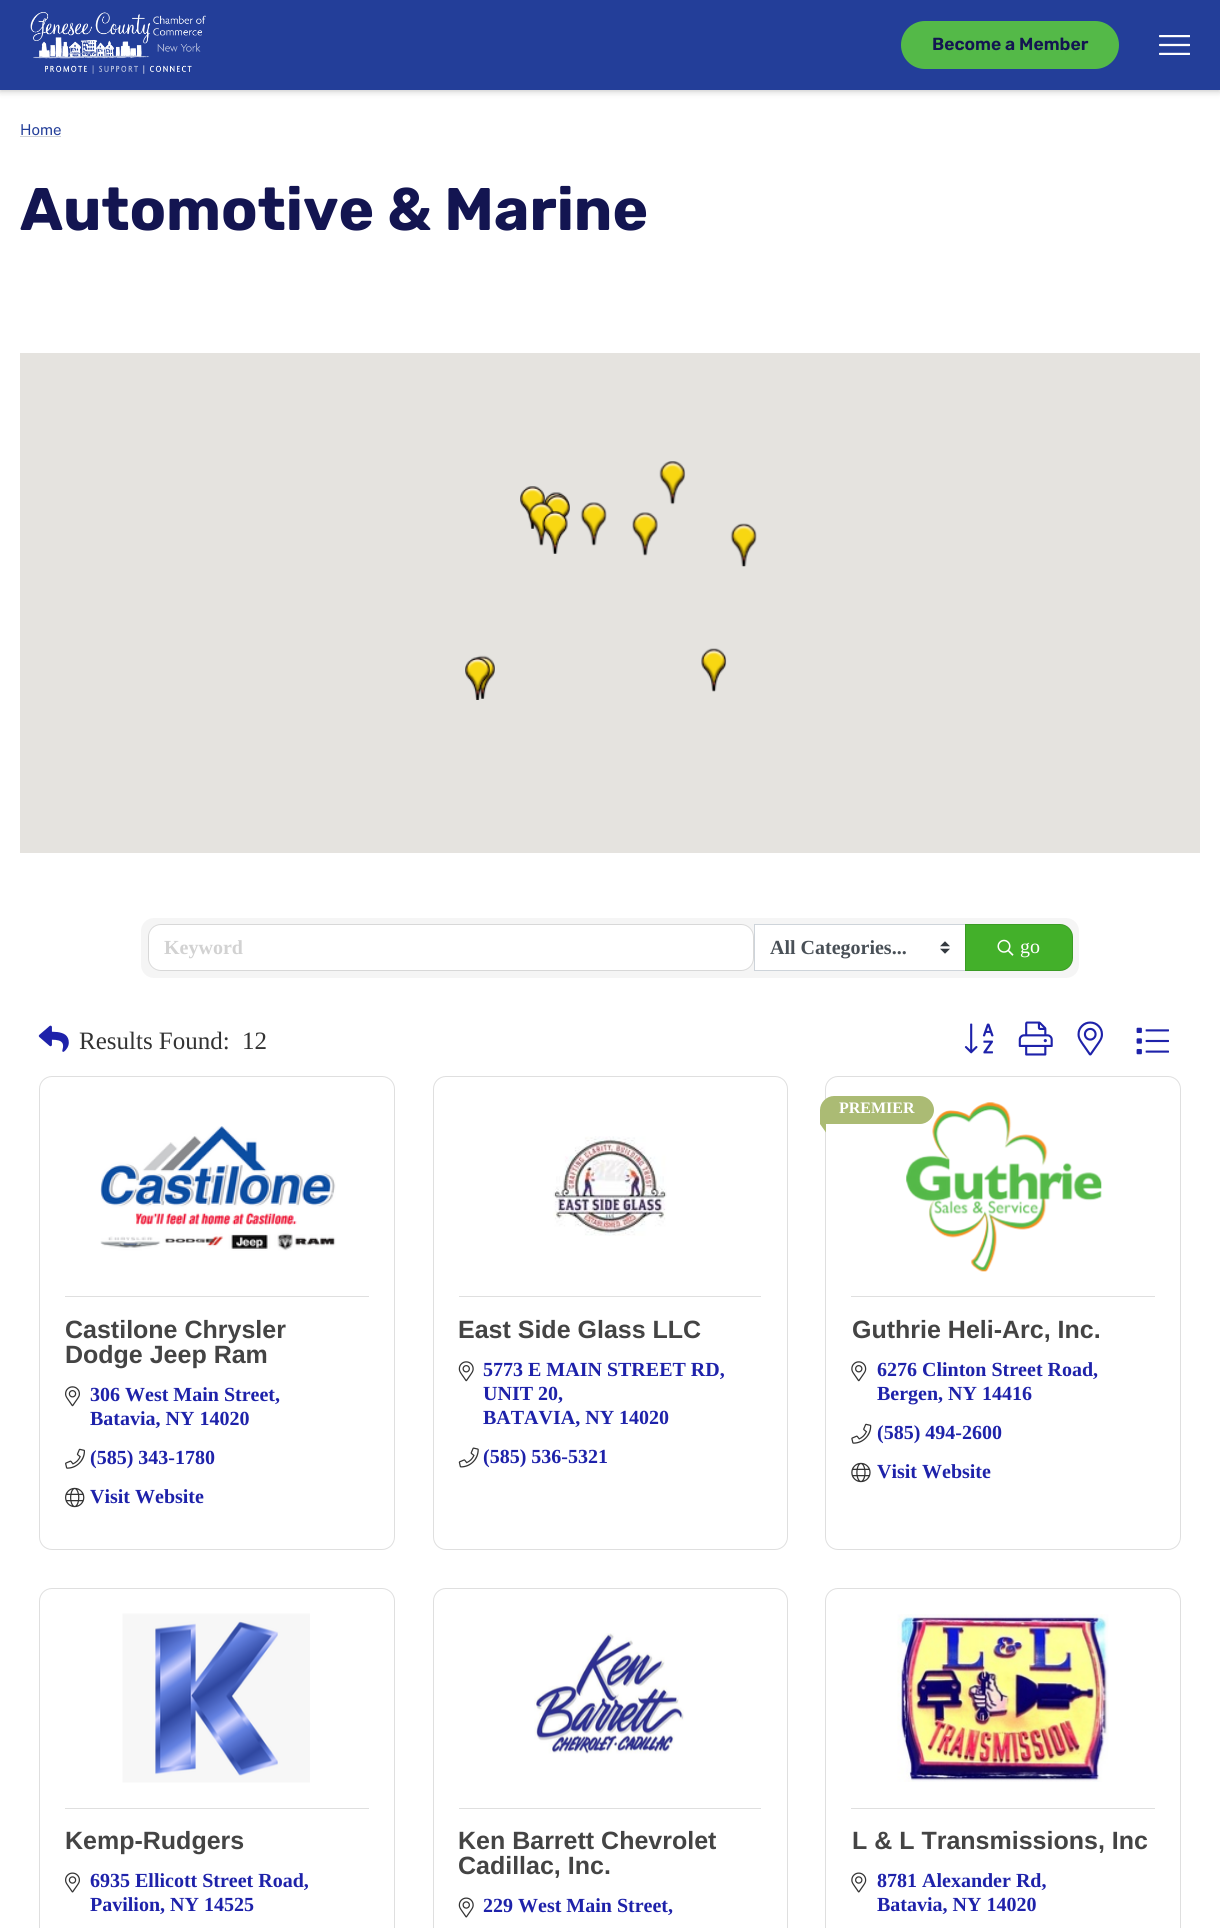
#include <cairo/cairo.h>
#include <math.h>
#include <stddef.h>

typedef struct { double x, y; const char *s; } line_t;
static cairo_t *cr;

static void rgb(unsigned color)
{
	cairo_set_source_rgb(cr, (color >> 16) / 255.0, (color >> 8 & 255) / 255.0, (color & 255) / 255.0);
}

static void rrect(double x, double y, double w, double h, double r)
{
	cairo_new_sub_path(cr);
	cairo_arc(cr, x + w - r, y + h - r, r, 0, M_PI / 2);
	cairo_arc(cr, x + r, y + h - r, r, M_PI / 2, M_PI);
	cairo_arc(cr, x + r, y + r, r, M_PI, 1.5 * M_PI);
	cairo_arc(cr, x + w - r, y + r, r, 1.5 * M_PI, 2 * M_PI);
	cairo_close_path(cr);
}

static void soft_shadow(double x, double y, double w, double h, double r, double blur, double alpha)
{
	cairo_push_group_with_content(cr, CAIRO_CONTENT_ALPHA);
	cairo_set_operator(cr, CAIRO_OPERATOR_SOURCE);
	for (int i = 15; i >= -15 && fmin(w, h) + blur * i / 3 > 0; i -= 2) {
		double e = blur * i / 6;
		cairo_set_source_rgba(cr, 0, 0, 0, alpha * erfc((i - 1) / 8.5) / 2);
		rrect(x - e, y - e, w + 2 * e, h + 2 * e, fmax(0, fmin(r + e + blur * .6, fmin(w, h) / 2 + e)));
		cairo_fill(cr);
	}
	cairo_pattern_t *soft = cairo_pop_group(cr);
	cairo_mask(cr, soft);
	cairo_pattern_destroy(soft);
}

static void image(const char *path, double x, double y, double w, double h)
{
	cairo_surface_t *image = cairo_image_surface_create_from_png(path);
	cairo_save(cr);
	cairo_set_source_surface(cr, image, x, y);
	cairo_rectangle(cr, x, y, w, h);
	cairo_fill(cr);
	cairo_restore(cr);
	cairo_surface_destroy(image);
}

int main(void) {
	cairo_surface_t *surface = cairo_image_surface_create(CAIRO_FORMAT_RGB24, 1220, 1928);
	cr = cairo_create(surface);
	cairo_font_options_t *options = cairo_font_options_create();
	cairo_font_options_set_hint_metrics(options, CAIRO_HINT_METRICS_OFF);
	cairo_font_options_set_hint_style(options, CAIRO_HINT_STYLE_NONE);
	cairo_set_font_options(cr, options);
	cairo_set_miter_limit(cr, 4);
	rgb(0xffffff);
	cairo_paint(cr);
	rgb(0x000000);
	soft_shadow(0, 0, 1220, 90, 0, 4, 0.3);
	rgb(0x233e99);
	cairo_rectangle(cr, 0, 0, 1220, 90);
	cairo_fill(cr);
	image("img/1.png", 30, 12, 176, 62);
	rgb(0x54b948);
	rrect(901, 21, 218, 48, 24);
	cairo_fill(cr);
	image("img/2.png", 1159, 35, 31, 20);
	rgb(0xced1d7);
	cairo_rectangle(cr, 20, 136, 41, 1);
	cairo_fill(cr);
	rgb(0xe5e3df);
	cairo_rectangle(cr, 20, 353, 1180, 500);
	cairo_fill(cr);
	image("img/3.png", 520, 486, 25, 43);
	image("img/4.png", 543, 492, 26, 25);
	image("img/5.png", 659, 461, 27, 44);
	image("img/7.png", 545, 495, 25, 43);
	image("img/6.png", 528, 502, 26, 44);
	image("img/8.png", 580, 502, 27, 44);
	image("img/9.png", 542, 511, 26, 43);
	image("img/10.png", 632, 512, 26, 44);
	image("img/11.png", 730, 523, 27, 44);
	image("img/12.png", 471, 655, 24, 44);
	image("img/13.png", 701, 648, 26, 44);
	image("img/14.png", 465, 657, 25, 43);
	rgb(0xf5f5f5);
	rrect(141, 918, 938, 60, 13);
	cairo_fill(cr);
	rgb(0xffffff);
	rrect(149, 925, 604, 45, 11);
	cairo_fill(cr);
	rrect(148.5, 924.5, 605, 46, 12.5);
	cairo_set_source_rgba(cr, 0, 0, 0, 0.12);
	cairo_set_line_width(cr, 1);
	cairo_stroke(cr);
	rgb(0xffffff);
	cairo_rectangle(cr, 755, 925, 210, 45);
	cairo_fill(cr);
	image("img/15.png", 940, 941, 10, 13);
	cairo_rectangle(cr, 754.5, 924.5, 211, 46);
	rgb(0xced4da);
	cairo_stroke(cr);
	rgb(0x43b02a);
	cairo_new_path(cr);
	cairo_move_to(cr, 965, 924);
	cairo_line_to(cr, 1060, 924);
	cairo_curve_to(cr, 1067, 924, 1073, 930, 1073, 937);
	cairo_line_to(cr, 1073, 958);
	cairo_curve_to(cr, 1073, 965, 1067, 971, 1060, 971);
	cairo_line_to(cr, 965, 971);
	cairo_close_path(cr);
	cairo_fill(cr);
	cairo_new_path(cr);
	cairo_move_to(cr, 965.5, 924.5);
	cairo_line_to(cr, 1060, 924.5);
	cairo_curve_to(cr, 1067, 924.5, 1072.5, 930, 1072.5, 937);
	cairo_line_to(cr, 1072.5, 958);
	cairo_curve_to(cr, 1072.5, 965, 1067, 970.5, 1060, 970.5);
	cairo_line_to(cr, 965.5, 970.5);
	cairo_close_path(cr);
	cairo_set_source_rgba(cr, 0, 0, 0, 0.12);
	cairo_stroke(cr);
	image("img/16.png", 997, 939, 17, 17);
	image("img/17.png", 38, 1025, 31, 27);
	image("img/18.png", 964, 1023, 30, 31);
	image("img/19.png", 1018, 1021, 35, 35);
	image("img/20.png", 1077, 1021, 26, 35);
	image("img/21.png", 1136, 1027, 33, 28);
	rrect(39.5, 1076.5, 355, 473, 12.5);
	rgb(0xdfdfdf);
	cairo_stroke(cr);
	image("img/22.png", 100, 1126, 236, 125);
	cairo_rectangle(cr, 65, 1296, 304, 1);
	cairo_fill(cr);
	image("img/23.png", 65, 1386, 15, 21);
	image("img/24.png", 65, 1448, 20, 21);
	image("img/25.png", 65, 1487, 20, 21);
	rrect(433.5, 1076.5, 354, 473, 12.5);
	cairo_stroke(cr);
	image("img/26.png", 553, 1136, 114, 100);
	cairo_rectangle(cr, 459, 1296, 302, 1);
	cairo_fill(cr);
	image("img/27.png", 458, 1361, 16, 21);
	image("img/28.png", 458, 1447, 21, 21);
	rrect(825.5, 1076.5, 355, 473, 12.5);
	cairo_stroke(cr);
	image("img/29.png", 906, 1102, 196, 170);
	rgb(0xabbb74);
	cairo_new_path(cr);
	cairo_move_to(cr, 834, 1096);
	cairo_line_to(cr, 920, 1096);
	cairo_curve_to(cr, 927.5, 1096, 934, 1102.5, 934, 1110);
	cairo_curve_to(cr, 934, 1117.5, 927.5, 1124, 920, 1124);
	cairo_line_to(cr, 820.5, 1124);
	cairo_curve_to(cr, 820, 1124, 820, 1124, 820, 1123.5);
	cairo_line_to(cr, 820, 1110);
	cairo_curve_to(cr, 820, 1102.5, 826.5, 1096, 834, 1096);
	cairo_close_path(cr);
	cairo_fill(cr);
	cairo_new_path(cr);
	cairo_move_to(cr, 826, 1115);
	cairo_line_to(cr, 826, 1132.5);
	cairo_line_to(cr, 820, 1124);
	cairo_close_path(cr);
	cairo_fill(cr);
	rgb(0xdfdfdf);
	cairo_rectangle(cr, 851, 1296, 304, 1);
	cairo_fill(cr);
	image("img/30.png", 851, 1361, 16, 21);
	image("img/31.png", 851, 1423, 21, 21);
	image("img/32.png", 851, 1462, 20, 21);
	rrect(39.5, 1588.5, 355, 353, 12.5);
	cairo_stroke(cr);
	image("img/33.png", 122, 1613, 188, 170);
	cairo_rectangle(cr, 65, 1808, 304, 1);
	cairo_fill(cr);
	image("img/34.png", 65, 1872, 15, 21);
	rrect(433.5, 1588.5, 354, 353, 12.5);
	cairo_stroke(cr);
	image("img/35.png", 534, 1633, 150, 121);
	cairo_rectangle(cr, 459, 1808, 302, 1);
	cairo_fill(cr);
	image("img/36.png", 458, 1897, 16, 21);
	rrect(825.5, 1588.5, 355, 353, 12.5);
	cairo_stroke(cr);
	image("img/37.png", 897, 1614, 212, 168);
	cairo_rectangle(cr, 851, 1808, 304, 1);
	cairo_fill(cr);
	image("img/38.png", 851, 1872, 16, 21);
	cairo_select_font_face(cr, "Rubik SemiBold", CAIRO_FONT_SLANT_NORMAL, CAIRO_FONT_WEIGHT_NORMAL);
	cairo_set_font_size(cr, 17.5);
	rgb(0x131551);
	cairo_move_to(cr, 932, 50);
	cairo_show_text(cr, "Become a Member");
	cairo_select_font_face(cr, "Public Sans", CAIRO_FONT_SLANT_NORMAL, CAIRO_FONT_WEIGHT_NORMAL);
	cairo_set_font_size(cr, 15);
	rgb(0x233e99);
	cairo_move_to(cr, 20, 135);
	cairo_show_text(cr, "Home");
	cairo_select_font_face(cr, "Rubik", CAIRO_FONT_SLANT_NORMAL, CAIRO_FONT_WEIGHT_BOLD);
	cairo_set_font_size(cr, 60);
	rgb(0x131551);
	cairo_move_to(cr, 20, 230);
	cairo_show_text(cr, "Automotive & Marine");
	cairo_select_font_face(cr, "Liberation Serif", CAIRO_FONT_SLANT_NORMAL, CAIRO_FONT_WEIGHT_BOLD);
	cairo_set_font_size(cr, 20);
	rgb(0xd2d2d2);
	cairo_move_to(cr, 164, 954);
	cairo_show_text(cr, "Keyword");
	rgb(0x495057);
	cairo_move_to(cr, 770, 954);
	cairo_show_text(cr, "All Categories...");
	cairo_select_font_face(cr, "Liberation Serif", CAIRO_FONT_SLANT_NORMAL, CAIRO_FONT_WEIGHT_NORMAL);
	rgb(0xffffff);
	cairo_move_to(cr, 1020, 953);
	cairo_show_text(cr, "go");
	cairo_set_font_size(cr, 25);
	rgb(0x333333);
	cairo_move_to(cr, 79, 1049);
	cairo_show_text(cr, "Results Found:");
	cairo_move_to(cr, 242, 1049);
	cairo_show_text(cr, "12");
	cairo_select_font_face(cr, "Liberation Sans", CAIRO_FONT_SLANT_NORMAL, CAIRO_FONT_WEIGHT_BOLD);
	rgb(0x444444);
	cairo_move_to(cr, 65, 1338);
	cairo_show_text(cr, "Castilone Chrysler");
	cairo_move_to(cr, 65, 1363);
	cairo_show_text(cr, "Dodge Jeep Ram");
	cairo_select_font_face(cr, "Liberation Serif", CAIRO_FONT_SLANT_NORMAL, CAIRO_FONT_WEIGHT_BOLD);
	cairo_set_font_size(cr, 20);
	rgb(0x1e22aa);
	{
		static const line_t items[] = {
			{90, 1401, "306 West Main Street,"},
			{90, 1425, "Batavia, NY 14020"},
			{90, 1464, "(585) 343-1780"},
			{90, 1503, "Visit Website"},
		};
		for (size_t i = 0; i < sizeof items / sizeof *items; i++) {
			cairo_move_to(cr, items[i].x, items[i].y);
			cairo_show_text(cr, items[i].s);
		}
	}
	cairo_select_font_face(cr, "Liberation Sans", CAIRO_FONT_SLANT_NORMAL, CAIRO_FONT_WEIGHT_BOLD);
	cairo_set_font_size(cr, 25);
	rgb(0x444444);
	cairo_move_to(cr, 458, 1338);
	cairo_show_text(cr, "East Side Glass LLC");
	cairo_select_font_face(cr, "Liberation Serif", CAIRO_FONT_SLANT_NORMAL, CAIRO_FONT_WEIGHT_BOLD);
	cairo_set_font_size(cr, 20);
	rgb(0x1e22aa);
	{
		static const line_t items[] = {
			{483, 1376, "5773 E MAIN STREET RD,"},
			{483, 1400, "UNIT 20,"},
			{483, 1424, "BATAVIA, NY 14020"},
			{483, 1463, "(585) 536-5321"},
		};
		for (size_t i = 0; i < sizeof items / sizeof *items; i++) {
			cairo_move_to(cr, items[i].x, items[i].y);
			cairo_show_text(cr, items[i].s);
		}
	}
	cairo_set_font_size(cr, 16);
	rgb(0xffffff);
	cairo_move_to(cr, 839, 1113);
	cairo_show_text(cr, "PREMIER");
	cairo_select_font_face(cr, "Liberation Sans", CAIRO_FONT_SLANT_NORMAL, CAIRO_FONT_WEIGHT_BOLD);
	cairo_set_font_size(cr, 25);
	rgb(0x444444);
	cairo_move_to(cr, 852, 1338);
	cairo_show_text(cr, "Guthrie Heli-Arc, Inc.");
	cairo_select_font_face(cr, "Liberation Serif", CAIRO_FONT_SLANT_NORMAL, CAIRO_FONT_WEIGHT_BOLD);
	cairo_set_font_size(cr, 20);
	rgb(0x1e22aa);
	{
		static const line_t items[] = {
			{877, 1376, "6276 Clinton Street Road,"},
			{877, 1400, "Bergen, NY 14416"},
			{877, 1439, "(585) 494-2600"},
			{877, 1478, "Visit Website"},
		};
		for (size_t i = 0; i < sizeof items / sizeof *items; i++) {
			cairo_move_to(cr, items[i].x, items[i].y);
			cairo_show_text(cr, items[i].s);
		}
	}
	cairo_select_font_face(cr, "Liberation Sans", CAIRO_FONT_SLANT_NORMAL, CAIRO_FONT_WEIGHT_BOLD);
	cairo_set_font_size(cr, 25);
	rgb(0x444444);
	cairo_move_to(cr, 65, 1849);
	cairo_show_text(cr, "Kemp-Rudgers");
	cairo_select_font_face(cr, "Liberation Serif", CAIRO_FONT_SLANT_NORMAL, CAIRO_FONT_WEIGHT_BOLD);
	cairo_set_font_size(cr, 20);
	rgb(0x1e22aa);
	cairo_move_to(cr, 90, 1887);
	cairo_show_text(cr, "6935 Ellicott Street Road,");
	cairo_move_to(cr, 90, 1911);
	cairo_show_text(cr, "Pavilion, NY 14525");
	cairo_select_font_face(cr, "Liberation Sans", CAIRO_FONT_SLANT_NORMAL, CAIRO_FONT_WEIGHT_BOLD);
	cairo_set_font_size(cr, 25);
	rgb(0x444444);
	cairo_move_to(cr, 458, 1849);
	cairo_show_text(cr, "Ken Barrett Chevrolet");
	cairo_move_to(cr, 458, 1874);
	cairo_show_text(cr, "Cadillac, Inc.");
	cairo_select_font_face(cr, "Liberation Serif", CAIRO_FONT_SLANT_NORMAL, CAIRO_FONT_WEIGHT_BOLD);
	cairo_set_font_size(cr, 20);
	rgb(0x1e22aa);
	cairo_move_to(cr, 483, 1912);
	cairo_show_text(cr, "229 West Main Street,");
	cairo_select_font_face(cr, "Liberation Sans", CAIRO_FONT_SLANT_NORMAL, CAIRO_FONT_WEIGHT_BOLD);
	cairo_set_font_size(cr, 25);
	rgb(0x444444);
	cairo_move_to(cr, 852, 1849);
	cairo_show_text(cr, "L & L Transmissions, Inc");
	cairo_select_font_face(cr, "Liberation Serif", CAIRO_FONT_SLANT_NORMAL, CAIRO_FONT_WEIGHT_BOLD);
	cairo_set_font_size(cr, 20);
	rgb(0x1e22aa);
	cairo_move_to(cr, 877, 1887);
	cairo_show_text(cr, "8781 Alexander Rd,");
	cairo_move_to(cr, 877, 1911);
	cairo_show_text(cr, "Batavia, NY 14020");
	cairo_surface_write_to_png(surface, "page.png");
	cairo_font_options_destroy(options);
	cairo_destroy(cr);
	cairo_surface_destroy(surface);
	return 0;
}
